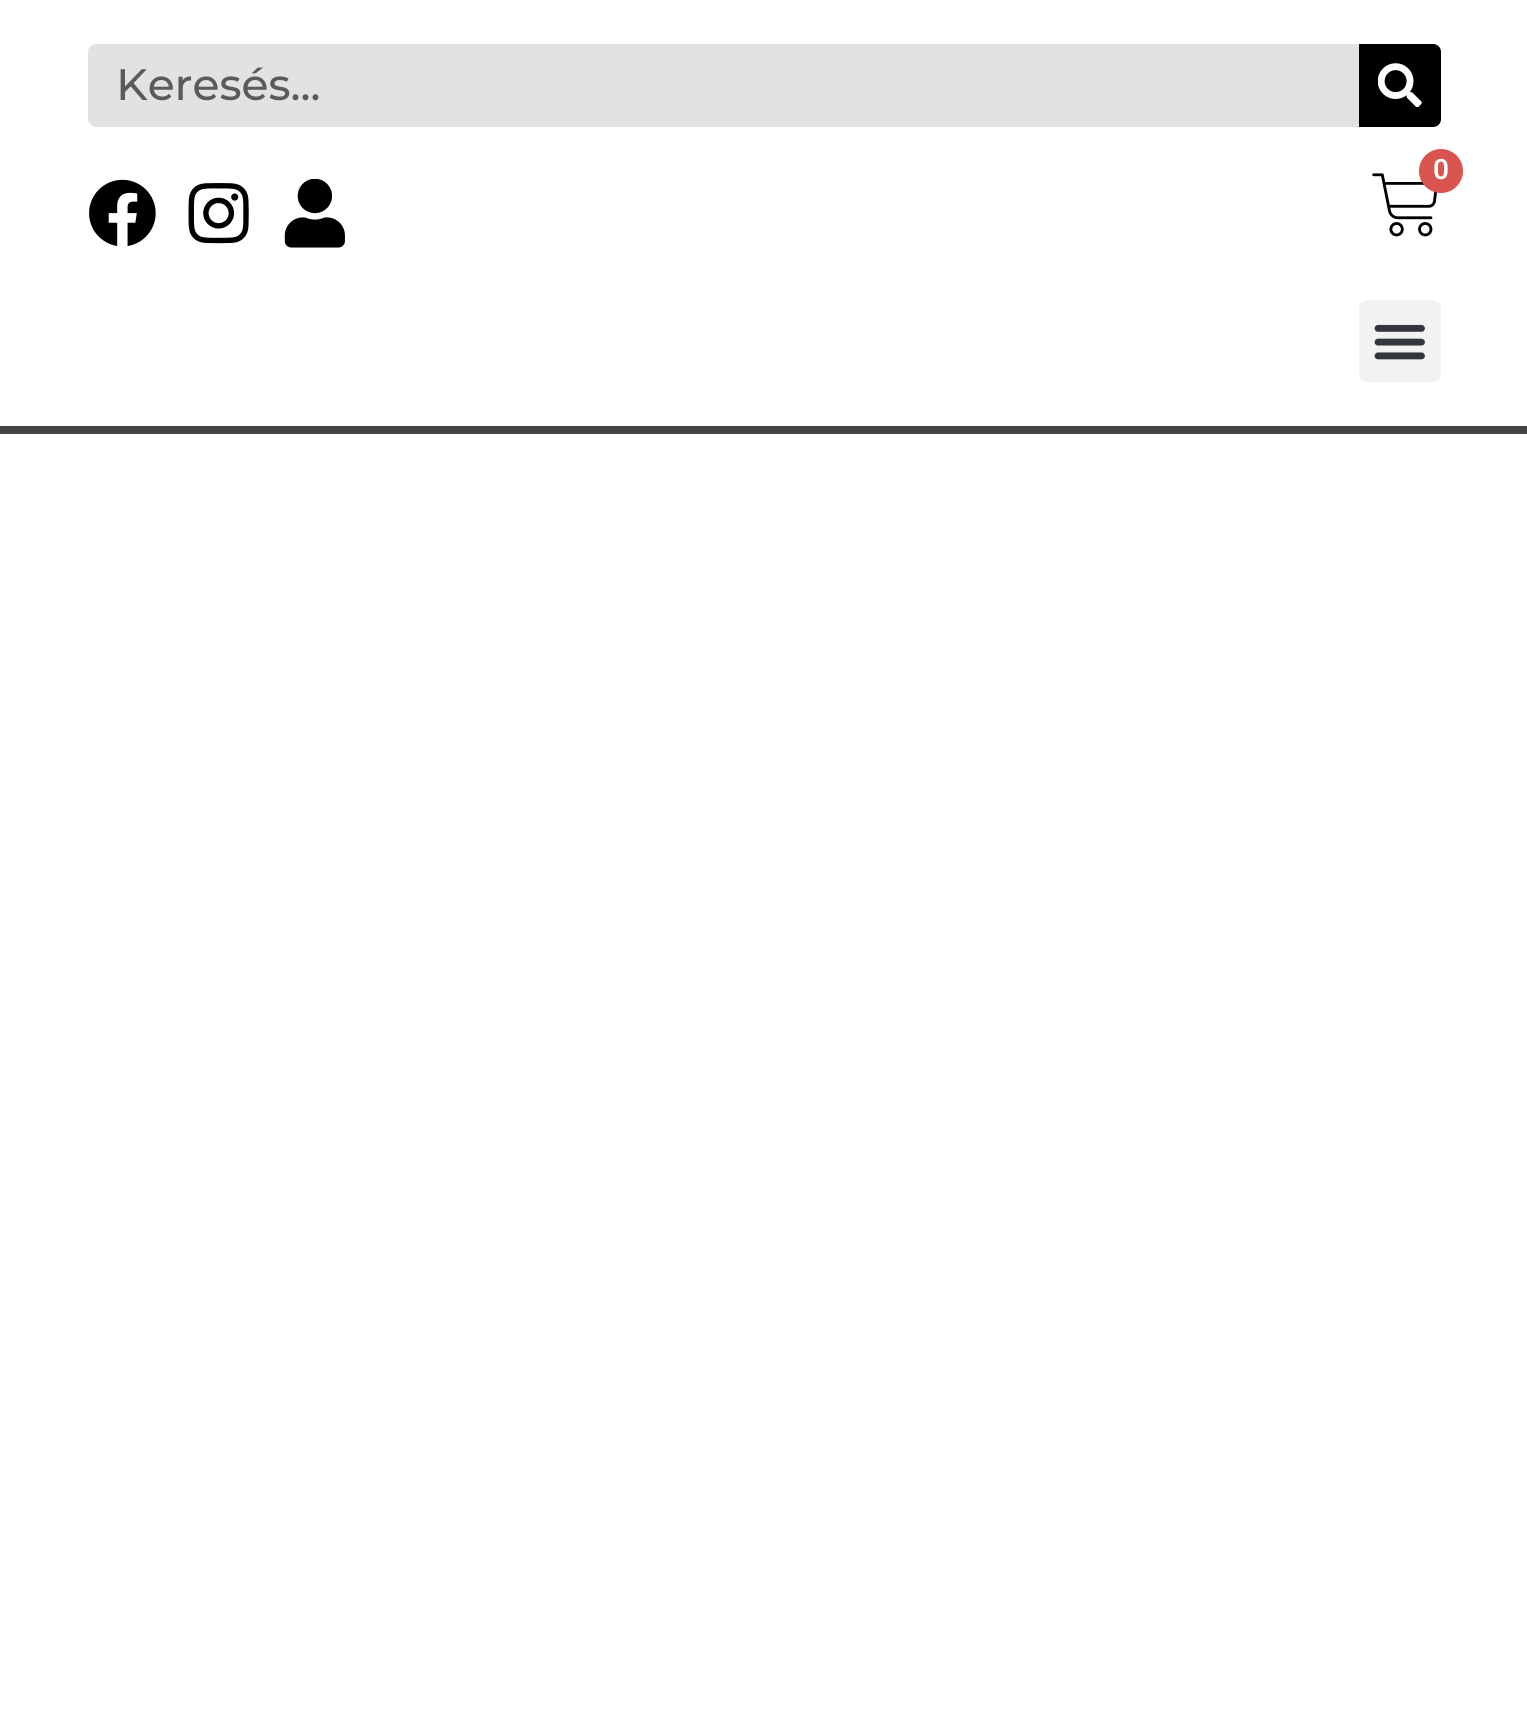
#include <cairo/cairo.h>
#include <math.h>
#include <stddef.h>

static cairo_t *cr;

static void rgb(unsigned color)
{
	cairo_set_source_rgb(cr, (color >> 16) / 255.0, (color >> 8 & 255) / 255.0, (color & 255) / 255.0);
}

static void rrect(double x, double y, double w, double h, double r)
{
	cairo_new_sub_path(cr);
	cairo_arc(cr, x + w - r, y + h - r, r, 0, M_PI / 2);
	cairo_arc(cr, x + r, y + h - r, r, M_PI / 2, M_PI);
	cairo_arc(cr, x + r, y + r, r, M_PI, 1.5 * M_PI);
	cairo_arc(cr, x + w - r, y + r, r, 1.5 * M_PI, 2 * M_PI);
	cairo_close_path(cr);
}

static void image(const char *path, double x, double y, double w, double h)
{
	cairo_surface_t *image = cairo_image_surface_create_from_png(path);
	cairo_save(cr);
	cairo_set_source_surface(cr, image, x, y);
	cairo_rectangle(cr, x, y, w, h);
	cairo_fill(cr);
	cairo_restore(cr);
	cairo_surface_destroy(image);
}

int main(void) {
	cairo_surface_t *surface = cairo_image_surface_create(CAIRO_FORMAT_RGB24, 1527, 1734);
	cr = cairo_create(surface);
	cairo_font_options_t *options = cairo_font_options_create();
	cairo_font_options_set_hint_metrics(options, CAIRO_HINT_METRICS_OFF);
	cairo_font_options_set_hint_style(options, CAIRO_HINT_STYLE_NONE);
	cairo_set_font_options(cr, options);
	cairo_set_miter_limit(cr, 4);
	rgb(0xffffff);
	cairo_paint(cr);
	rgb(0xe2e2e2);
	rrect(88, 44, 1353, 83, 8);
	cairo_fill(cr);
	rgb(0x000000);
	cairo_new_path(cr);
	cairo_move_to(cr, 1359, 44);
	cairo_line_to(cr, 1433, 44);
	cairo_curve_to(cr, 1437.5, 44, 1441, 47.5, 1441, 52);
	cairo_line_to(cr, 1441, 119);
	cairo_curve_to(cr, 1441, 123.5, 1437.5, 127, 1433, 127);
	cairo_line_to(cr, 1359, 127);
	cairo_close_path(cr);
	cairo_fill(cr);
	image("img/1.png", 1378, 63, 44, 44);
	rgb(0x454242);
	cairo_rectangle(cr, 0, 426, 1527, 8);
	cairo_fill(cr);
	image("img/2.png", 1372, 173, 66, 64);
	rgb(0xd9534f);
	cairo_arc(cr, 1441, 171, 22, 0, 2 * M_PI);
	cairo_fill(cr);
	rgb(0xf2f2f2);
	rrect(1359, 300, 82, 82, 8);
	cairo_fill(cr);
	image("img/3.png", 1374, 324, 51, 36);
	image("img/4.png", 89, 179, 67, 67);
	image("img/5.png", 188, 183, 61, 61);
	image("img/6.png", 284, 179, 61, 69);
	cairo_select_font_face(cr, "Montserrat Medium", CAIRO_FONT_SLANT_NORMAL, CAIRO_FONT_WEIGHT_NORMAL);
	cairo_set_font_size(cr, 44);
	rgb(0x5a5a5a);
	cairo_move_to(cr, 116, 100);
	cairo_show_text(cr, "Keresés...");
	cairo_select_font_face(cr, "Roboto SemiBold", CAIRO_FONT_SLANT_NORMAL, CAIRO_FONT_WEIGHT_NORMAL);
	cairo_set_font_size(cr, 28);
	rgb(0xffffff);
	cairo_move_to(cr, 1433, 179);
	cairo_show_text(cr, "0");
	cairo_surface_write_to_png(surface, "page.png");
	cairo_font_options_destroy(options);
	cairo_destroy(cr);
	cairo_surface_destroy(surface);
	return 0;
}
